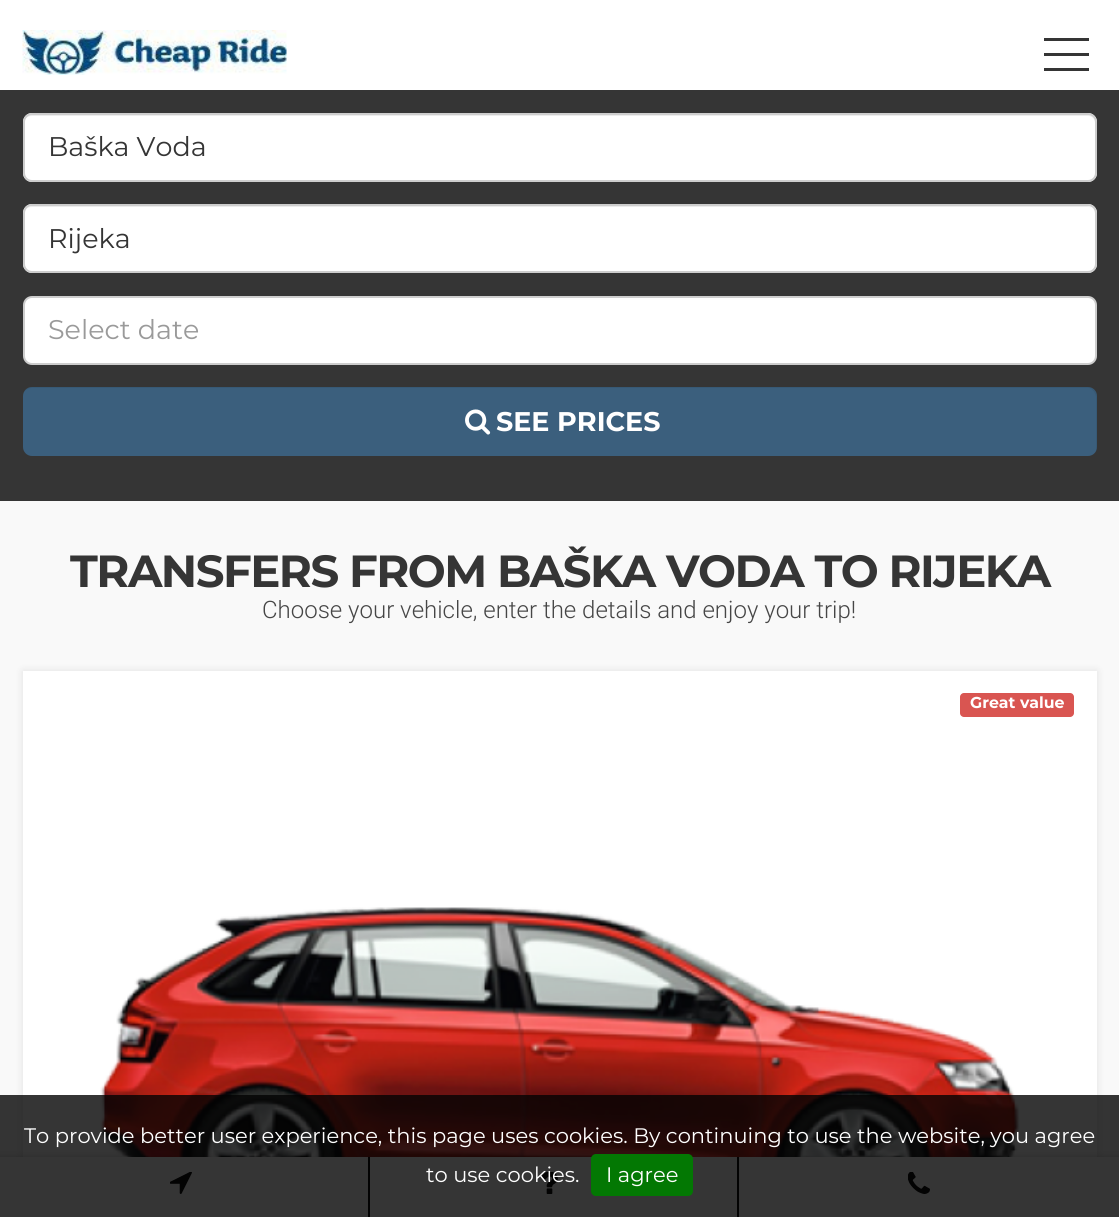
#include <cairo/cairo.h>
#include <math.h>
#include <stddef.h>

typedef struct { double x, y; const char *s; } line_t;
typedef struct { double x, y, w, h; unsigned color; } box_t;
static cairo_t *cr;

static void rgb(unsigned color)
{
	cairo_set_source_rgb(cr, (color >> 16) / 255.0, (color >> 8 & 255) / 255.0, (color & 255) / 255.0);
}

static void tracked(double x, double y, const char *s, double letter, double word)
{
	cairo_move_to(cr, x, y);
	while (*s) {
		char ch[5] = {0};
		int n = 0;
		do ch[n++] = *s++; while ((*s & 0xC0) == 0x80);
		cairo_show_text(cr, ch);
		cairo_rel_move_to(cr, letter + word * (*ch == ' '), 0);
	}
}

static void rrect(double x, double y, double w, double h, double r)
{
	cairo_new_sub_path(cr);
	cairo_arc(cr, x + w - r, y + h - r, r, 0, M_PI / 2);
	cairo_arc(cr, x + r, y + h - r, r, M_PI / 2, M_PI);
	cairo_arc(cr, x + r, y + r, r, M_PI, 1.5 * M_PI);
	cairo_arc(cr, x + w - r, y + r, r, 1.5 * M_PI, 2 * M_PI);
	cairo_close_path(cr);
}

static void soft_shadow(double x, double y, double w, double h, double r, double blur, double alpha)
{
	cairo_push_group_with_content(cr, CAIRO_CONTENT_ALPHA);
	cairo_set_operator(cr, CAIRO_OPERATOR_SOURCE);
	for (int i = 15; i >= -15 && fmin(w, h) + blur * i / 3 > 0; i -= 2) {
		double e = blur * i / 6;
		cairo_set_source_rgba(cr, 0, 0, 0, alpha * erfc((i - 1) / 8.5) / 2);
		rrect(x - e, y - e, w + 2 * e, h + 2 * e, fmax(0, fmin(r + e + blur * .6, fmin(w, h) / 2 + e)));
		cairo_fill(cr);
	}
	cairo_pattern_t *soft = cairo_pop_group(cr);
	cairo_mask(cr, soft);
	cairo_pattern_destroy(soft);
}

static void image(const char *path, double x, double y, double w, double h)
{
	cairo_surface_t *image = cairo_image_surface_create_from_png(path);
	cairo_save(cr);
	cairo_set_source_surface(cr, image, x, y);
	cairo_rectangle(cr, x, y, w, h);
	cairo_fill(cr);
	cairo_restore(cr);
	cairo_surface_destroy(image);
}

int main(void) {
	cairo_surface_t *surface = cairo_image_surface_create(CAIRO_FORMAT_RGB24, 1119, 1217);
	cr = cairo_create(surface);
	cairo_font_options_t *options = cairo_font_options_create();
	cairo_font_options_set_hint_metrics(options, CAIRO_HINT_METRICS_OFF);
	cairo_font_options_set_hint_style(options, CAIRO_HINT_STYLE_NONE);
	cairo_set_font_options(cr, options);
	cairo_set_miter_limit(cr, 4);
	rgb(0xf9f9f9);
	cairo_paint(cr);
	rgb(0xffffff);
	cairo_rectangle(cr, 0, 0, 1119, 90);
	cairo_fill(cr);
	image("img/1.png", 22, 30, 265, 45);
	{
		static const box_t items[] = {
			{1044, 53, 45, 3, 0x353535},
			{1044, 38, 45, 3, 0x353535},
			{1044, 68, 45, 3, 0x353535},
			{0, 90, 1119, 411, 0x353535},
		};
		for (size_t i = 0; i < sizeof items / sizeof *items; i++) {
			rgb(items[i].color);
			cairo_rectangle(cr, items[i].x, items[i].y, items[i].w, items[i].h);
			cairo_fill(cr);
		}
	}
	rgb(0xffffff);
	rrect(23, 113, 1074, 69, 9);
	cairo_fill(cr);
	rgb(0xececec);
	cairo_new_path(cr);
	cairo_move_to(cr, 32, 116);
	cairo_line_to(cr, 1088, 116);
	cairo_curve_to(cr, 1092, 116, 1095, 119, 1095, 123);
	cairo_line_to(cr, 1095, 122);
	cairo_curve_to(cr, 1095, 118, 1091, 114, 1087, 114);
	cairo_line_to(cr, 32, 114);
	cairo_curve_to(cr, 28, 114, 24, 118, 24, 122);
	cairo_line_to(cr, 24, 123);
	cairo_curve_to(cr, 24, 119, 27, 116, 32, 116);
	cairo_close_path(cr);
	cairo_fill(cr);
	rrect(24, 114, 1072, 67, 8);
	rgb(0xcdcdcd);
	cairo_stroke(cr);
	rgb(0xffffff);
	rrect(23, 204, 1074, 69, 9);
	cairo_fill(cr);
	rgb(0xececec);
	cairo_new_path(cr);
	cairo_move_to(cr, 32, 207);
	cairo_line_to(cr, 1088, 207);
	cairo_curve_to(cr, 1092, 207, 1095, 210, 1095, 214);
	cairo_curve_to(cr, 1095, 210, 1091, 206, 1087, 206);
	cairo_line_to(cr, 32, 206);
	cairo_curve_to(cr, 28, 206, 24, 210, 24, 214);
	cairo_curve_to(cr, 24, 210, 27, 207, 32, 207);
	cairo_close_path(cr);
	cairo_fill(cr);
	rrect(24, 205, 1072, 67, 8);
	rgb(0xcdcdcd);
	cairo_stroke(cr);
	rgb(0xffffff);
	rrect(24, 297, 1072, 67, 8);
	cairo_fill_preserve(cr);
	rgb(0xcdcdcd);
	cairo_stroke(cr);
	rgb(0x3b5f7d);
	rrect(23, 387, 1074, 69, 9);
	cairo_fill(cr);
	cairo_set_source_rgba(cr, 0.012, 0.012, 0.012, 0.07);
	cairo_new_path(cr);
	cairo_move_to(cr, 32, 388);
	cairo_line_to(cr, 1088, 388);
	cairo_curve_to(cr, 1092, 388, 1096, 393, 1096, 398);
	cairo_line_to(cr, 1096, 448);
	cairo_curve_to(cr, 1096, 450, 1096, 451, 1095, 453);
	cairo_curve_to(cr, 1096, 451, 1097, 449, 1097, 447);
	cairo_line_to(cr, 1097, 396);
	cairo_curve_to(cr, 1097, 391, 1093, 387, 1088, 387);
	cairo_line_to(cr, 32, 387);
	cairo_curve_to(cr, 28, 387, 25, 390, 23, 393);
	cairo_curve_to(cr, 25, 390, 29, 388, 32, 388);
	cairo_close_path(cr);
	cairo_fill(cr);
	image("img/2.png", 465, 409, 26, 26);
	rgb(0x030303);
	soft_shadow(23, 671, 1074, 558, 0, 4, 0.1);
	rgb(0xffffff);
	cairo_rectangle(cr, 23, 671, 1074, 486);
	cairo_fill(cr);
	rgb(0xd95551);
	rrect(960, 693, 114, 24, 4);
	cairo_fill(cr);
	image("img/3.png", 100, 907, 920, 250);
	rgb(0x030303);
	soft_shadow(0, 1157, 1119, 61, 0, 3, 0.2);
	rgb(0xffffff);
	cairo_rectangle(cr, 0, 1157, 1119, 60);
	cairo_fill(cr);
	rgb(0x030303);
	cairo_rectangle(cr, 368, 1157, 2, 60);
	cairo_fill(cr);
	image("img/4.png", 170, 1172, 22, 22);
	cairo_rectangle(cr, 737, 1157, 2, 60);
	cairo_fill(cr);
	image("img/5.png", 541, 1172, 17, 22);
	image("img/6.png", 908, 1172, 22, 22);
	cairo_set_source_rgba(cr, 0.012, 0.012, 0.012, 0.8);
	cairo_rectangle(cr, 0, 1095, 1119, 122);
	cairo_fill(cr);
	rgb(0x037803);
	rrect(591, 1154, 102, 42, 5);
	cairo_fill(cr);
	cairo_select_font_face(cr, "Montserrat", CAIRO_FONT_SLANT_NORMAL, CAIRO_FONT_WEIGHT_NORMAL);
	cairo_set_font_size(cr, 27);
	rgb(0x353535);
	cairo_move_to(cr, 48, 156);
	cairo_show_text(cr, "Baška Voda");
	cairo_move_to(cr, 48, 248);
	cairo_show_text(cr, "Rijeka");
	rgb(0x9a9a9a);
	cairo_move_to(cr, 48, 339);
	cairo_show_text(cr, "Select date");
	cairo_select_font_face(cr, "Montserrat", CAIRO_FONT_SLANT_NORMAL, CAIRO_FONT_WEIGHT_BOLD);
	rgb(0xffffff);
	cairo_move_to(cr, 496, 431);
	cairo_show_text(cr, "SEE PRICES");
	cairo_set_font_size(cr, 45);
	rgb(0x353535);
	tracked(70, 587, "TRANSFERS FROM BAŠKA VODA TO RIJEKA", -1.5, 0);
	cairo_select_font_face(cr, "Roboto Light", CAIRO_FONT_SLANT_NORMAL, CAIRO_FONT_WEIGHT_NORMAL);
	cairo_set_font_size(cr, 24);
	rgb(0x464646);
	cairo_move_to(cr, 262, 618);
	cairo_show_text(cr, "Choose your vehicle, enter the details and enjoy your trip!");
	cairo_select_font_face(cr, "Montserrat", CAIRO_FONT_SLANT_NORMAL, CAIRO_FONT_WEIGHT_BOLD);
	cairo_set_font_size(cr, 15.75);
	rgb(0xffffff);
	cairo_move_to(cr, 970, 708);
	cairo_show_text(cr, "Great value");
	cairo_select_font_face(cr, "Montserrat", CAIRO_FONT_SLANT_NORMAL, CAIRO_FONT_WEIGHT_NORMAL);
	cairo_set_font_size(cr, 21);
	{
		static const line_t items[] = {
			{24, 1143, "To provide better user experience, this page uses cookies. By continuing to use the website, you agree"},
			{426, 1182, "to use cookies."},
			{606, 1182, "I agree"},
		};
		for (size_t i = 0; i < sizeof items / sizeof *items; i++) {
			cairo_move_to(cr, items[i].x, items[i].y);
			cairo_show_text(cr, items[i].s);
		}
	}
	cairo_surface_write_to_png(surface, "page.png");
	cairo_font_options_destroy(options);
	cairo_destroy(cr);
	cairo_surface_destroy(surface);
	return 0;
}
